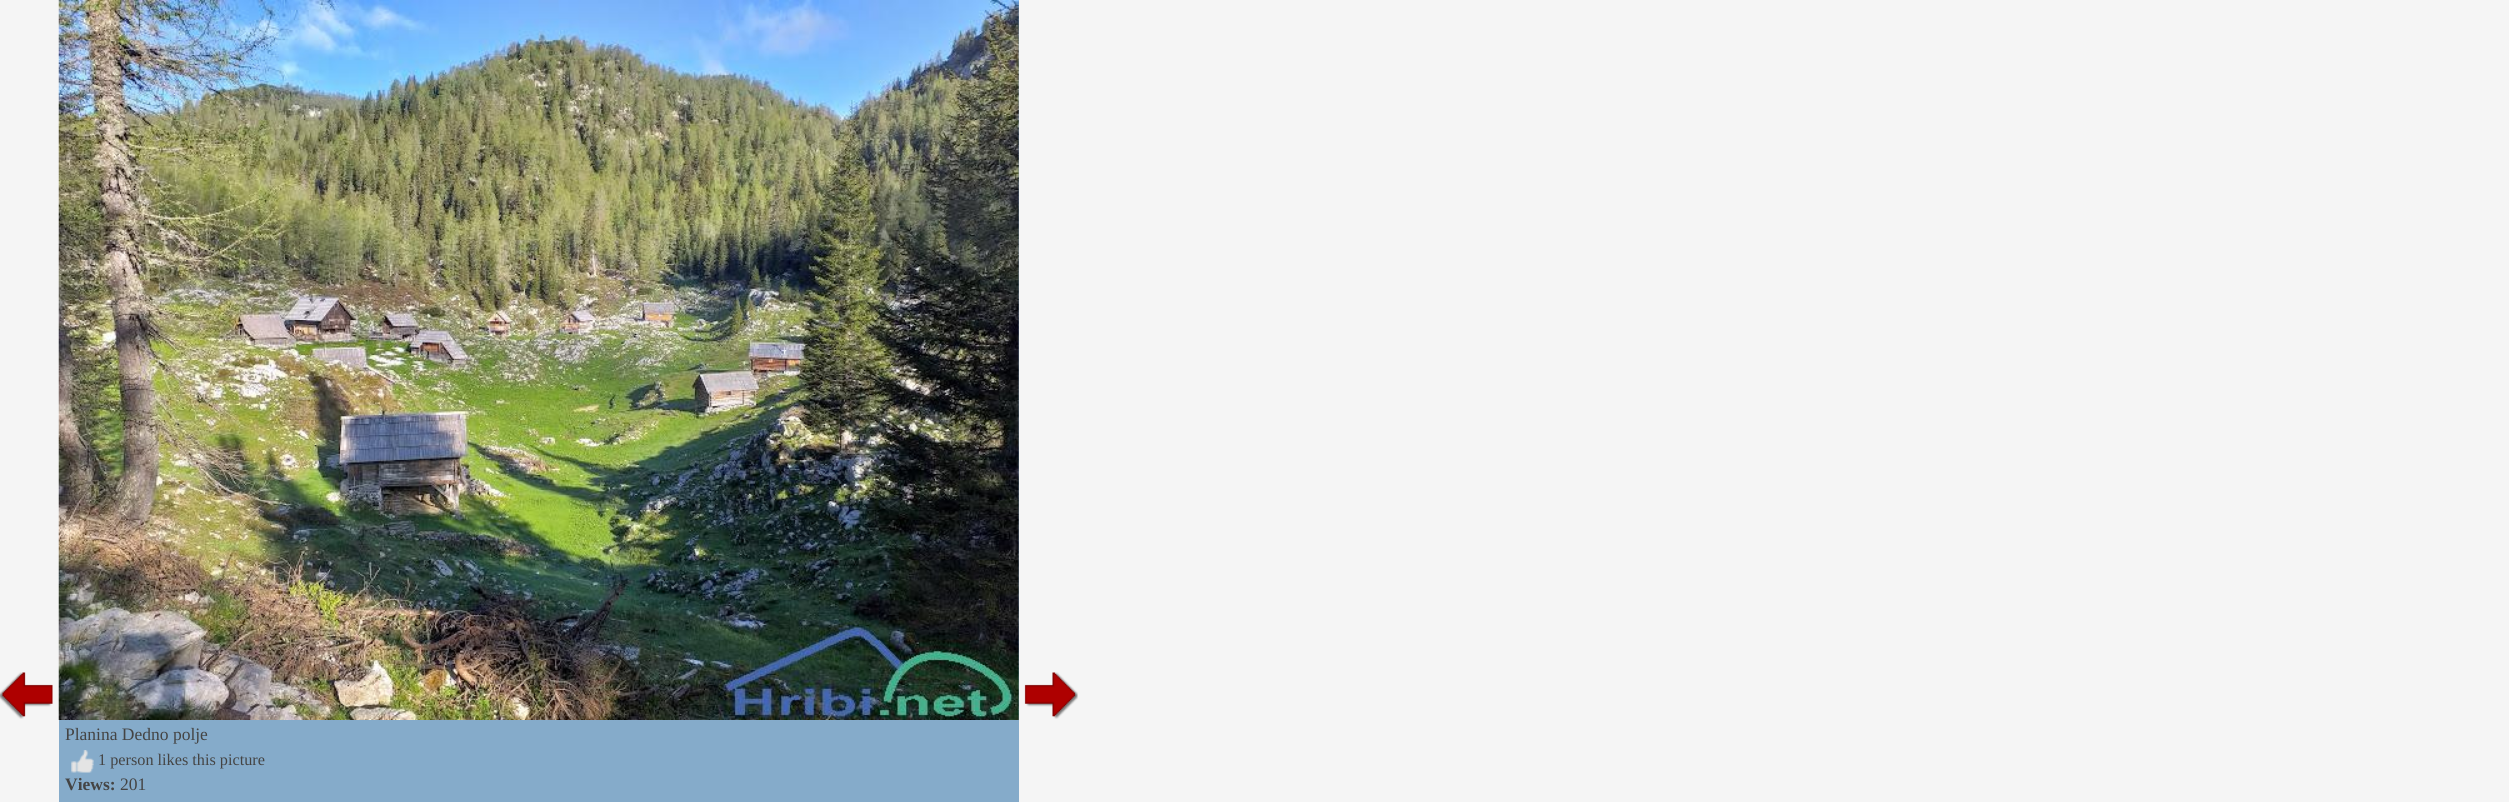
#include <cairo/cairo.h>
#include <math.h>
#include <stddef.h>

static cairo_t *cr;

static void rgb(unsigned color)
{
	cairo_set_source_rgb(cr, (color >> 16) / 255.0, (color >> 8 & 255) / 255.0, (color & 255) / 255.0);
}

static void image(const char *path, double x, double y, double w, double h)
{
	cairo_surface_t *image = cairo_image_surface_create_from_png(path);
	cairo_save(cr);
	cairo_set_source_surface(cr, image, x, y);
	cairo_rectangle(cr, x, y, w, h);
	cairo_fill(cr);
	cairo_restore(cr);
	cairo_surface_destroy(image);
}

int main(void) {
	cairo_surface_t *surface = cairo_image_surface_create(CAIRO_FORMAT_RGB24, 2509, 802);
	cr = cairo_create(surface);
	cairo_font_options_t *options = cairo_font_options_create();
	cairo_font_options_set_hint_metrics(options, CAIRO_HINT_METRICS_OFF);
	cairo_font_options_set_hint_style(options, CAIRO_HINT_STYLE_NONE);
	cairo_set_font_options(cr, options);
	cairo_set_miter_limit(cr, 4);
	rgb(0xf5f5f5);
	cairo_paint(cr);
	image("img/1.png", 0, 672, 53, 47);
	image("img/2.png", 1024, 672, 54, 47);
	rgb(0x85abca);
	cairo_rectangle(cr, 59, 0, 960, 802);
	cairo_fill(cr);
	image("img/3.png", 58, 0, 961, 720);
	image("img/4.png", 71, 750, 23, 23);
	cairo_select_font_face(cr, "Liberation Serif", CAIRO_FONT_SLANT_NORMAL, CAIRO_FONT_WEIGHT_NORMAL);
	cairo_set_font_size(cr, 17.5);
	rgb(0x444444);
	cairo_move_to(cr, 65, 740);
	cairo_show_text(cr, "Planina Dedno polje");
	cairo_set_font_size(cr, 16.25);
	cairo_move_to(cr, 98, 765);
	cairo_show_text(cr, "1 person likes this picture");
	cairo_select_font_face(cr, "Liberation Serif", CAIRO_FONT_SLANT_NORMAL, CAIRO_FONT_WEIGHT_BOLD);
	cairo_set_font_size(cr, 17.5);
	cairo_move_to(cr, 65, 790);
	cairo_show_text(cr, "Views:");
	cairo_select_font_face(cr, "Liberation Serif", CAIRO_FONT_SLANT_NORMAL, CAIRO_FONT_WEIGHT_NORMAL);
	cairo_move_to(cr, 120, 790);
	cairo_show_text(cr, "201");
	cairo_surface_write_to_png(surface, "page.png");
	cairo_font_options_destroy(options);
	cairo_destroy(cr);
	cairo_surface_destroy(surface);
	return 0;
}
